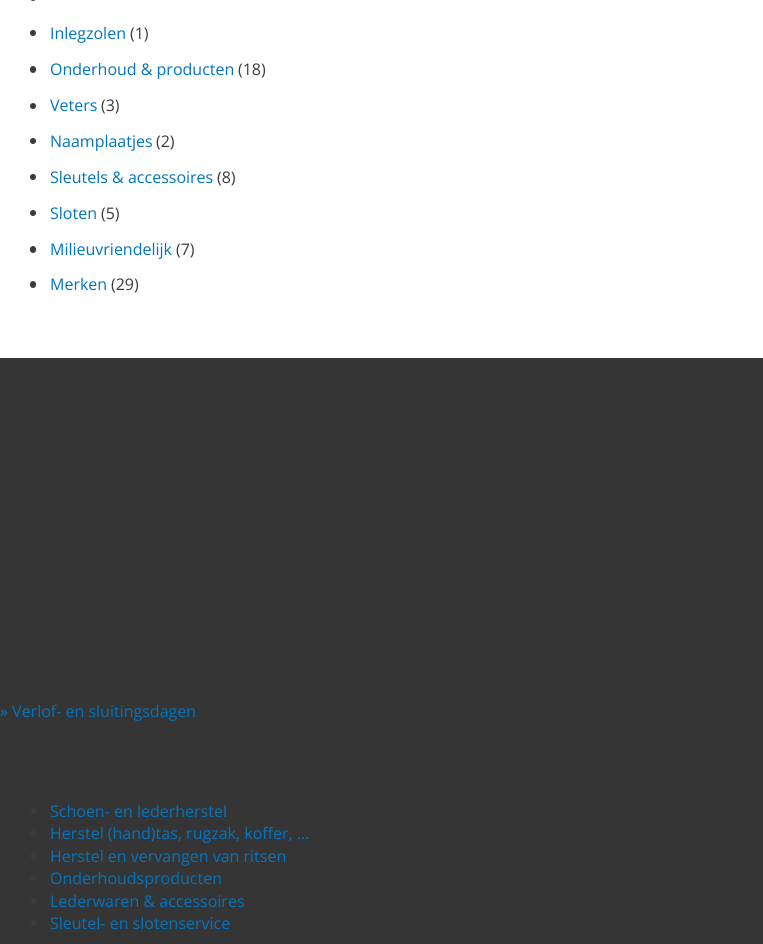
#include <cairo/cairo.h>
#include <math.h>
#include <stddef.h>

typedef struct { double x, y; const char *s; } line_t;
static cairo_t *cr;

static void rgb(unsigned color)
{
	cairo_set_source_rgb(cr, (color >> 16) / 255.0, (color >> 8 & 255) / 255.0, (color & 255) / 255.0);
}

static void rrect(double x, double y, double w, double h, double r)
{
	cairo_new_sub_path(cr);
	cairo_arc(cr, x + w - r, y + h - r, r, 0, M_PI / 2);
	cairo_arc(cr, x + r, y + h - r, r, M_PI / 2, M_PI);
	cairo_arc(cr, x + r, y + r, r, M_PI, 1.5 * M_PI);
	cairo_arc(cr, x + w - r, y + r, r, 1.5 * M_PI, 2 * M_PI);
	cairo_close_path(cr);
}

int main(void) {
	cairo_surface_t *surface = cairo_image_surface_create(CAIRO_FORMAT_RGB24, 763, 944);
	cr = cairo_create(surface);
	cairo_font_options_t *options = cairo_font_options_create();
	cairo_font_options_set_hint_metrics(options, CAIRO_HINT_METRICS_OFF);
	cairo_font_options_set_hint_style(options, CAIRO_HINT_STYLE_NONE);
	cairo_set_font_options(cr, options);
	cairo_set_miter_limit(cr, 4);
	rgb(0xffffff);
	cairo_paint(cr);
	rgb(0x3a3a3a);
	rrect(30, -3, 6, 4, 3);
	cairo_fill(cr);
	cairo_arc(cr, 33, 33, 3, 0, 2 * M_PI);
	cairo_fill(cr);
	rrect(30, 66, 6, 7, 3);
	cairo_fill(cr);
	cairo_arc(cr, 33, 106, 3, 0, 2 * M_PI);
	cairo_fill(cr);
	cairo_arc(cr, 33, 141, 3, 0, 2 * M_PI);
	cairo_fill(cr);
	cairo_arc(cr, 33, 177, 3, 0, 2 * M_PI);
	cairo_fill(cr);
	cairo_arc(cr, 33, 213, 3, 0, 2 * M_PI);
	cairo_fill(cr);
	rrect(30, 246, 6, 7, 3);
	cairo_fill(cr);
	rrect(30, 281, 6, 7, 3);
	cairo_fill(cr);
	rgb(0x353535);
	cairo_rectangle(cr, 0, 358, 763, 586);
	cairo_fill(cr);
	rgb(0x3a3a3a);
	cairo_arc(cr, 33, 811, 3, 0, 2 * M_PI);
	cairo_fill(cr);
	cairo_arc(cr, 33, 833, 3, 0, 2 * M_PI);
	cairo_fill(cr);
	cairo_arc(cr, 33, 856, 3, 0, 2 * M_PI);
	cairo_fill(cr);
	cairo_arc(cr, 33, 878, 3, 0, 2 * M_PI);
	cairo_fill(cr);
	cairo_arc(cr, 33, 901, 3, 0, 2 * M_PI);
	cairo_fill(cr);
	cairo_arc(cr, 33, 923, 3, 0, 2 * M_PI);
	cairo_fill(cr);
	rrect(30, 943, 6, 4, 3);
	cairo_fill(cr);
	cairo_select_font_face(cr, "Open Sans", CAIRO_FONT_SLANT_NORMAL, CAIRO_FONT_WEIGHT_NORMAL);
	cairo_set_font_size(cr, 16);
	rgb(0x0274be);
	cairo_move_to(cr, 50, 39);
	cairo_show_text(cr, "Inlegzolen");
	rgb(0x3a3a3a);
	cairo_move_to(cr, 130, 39);
	cairo_show_text(cr, "(1)");
	rgb(0x0274be);
	cairo_move_to(cr, 50, 75);
	cairo_show_text(cr, "Onderhoud & producten");
	rgb(0x3a3a3a);
	cairo_move_to(cr, 238, 75);
	cairo_show_text(cr, "(18)");
	rgb(0x0274be);
	cairo_move_to(cr, 50, 111);
	cairo_show_text(cr, "Veters");
	rgb(0x3a3a3a);
	cairo_move_to(cr, 101, 111);
	cairo_show_text(cr, "(3)");
	rgb(0x0274be);
	cairo_move_to(cr, 50, 147);
	cairo_show_text(cr, "Naamplaatjes");
	rgb(0x3a3a3a);
	cairo_move_to(cr, 156, 147);
	cairo_show_text(cr, "(2)");
	rgb(0x0274be);
	cairo_move_to(cr, 50, 183);
	cairo_show_text(cr, "Sleutels & accessoires");
	rgb(0x3a3a3a);
	cairo_move_to(cr, 217, 183);
	cairo_show_text(cr, "(8)");
	rgb(0x0274be);
	cairo_move_to(cr, 50, 219);
	cairo_show_text(cr, "Sloten");
	rgb(0x3a3a3a);
	cairo_move_to(cr, 101, 219);
	cairo_show_text(cr, "(5)");
	rgb(0x0274be);
	cairo_move_to(cr, 50, 255);
	cairo_show_text(cr, "Milieuvriendelijk");
	rgb(0x3a3a3a);
	cairo_move_to(cr, 176, 255);
	cairo_show_text(cr, "(7)");
	rgb(0x0274be);
	cairo_move_to(cr, 50, 290);
	cairo_show_text(cr, "Merken");
	rgb(0x3a3a3a);
	cairo_move_to(cr, 111, 290);
	cairo_show_text(cr, "(29)");
	rgb(0x0274be);
	{
		static const line_t items[] = {
			{0, 717, "» Verlof- en sluitingsdagen"},
			{50, 817, "Schoen- en lederherstel"},
			{50, 839, "Herstel (hand)tas, rugzak, koffer, …"},
			{50, 862, "Herstel en vervangen van ritsen"},
			{50, 884, "Onderhoudsproducten"},
			{50, 907, "Lederwaren & accessoires"},
			{50, 929, "Sleutel- en slotenservice"},
		};
		for (size_t i = 0; i < sizeof items / sizeof *items; i++) {
			cairo_move_to(cr, items[i].x, items[i].y);
			cairo_show_text(cr, items[i].s);
		}
	}
	cairo_surface_write_to_png(surface, "page.png");
	cairo_font_options_destroy(options);
	cairo_destroy(cr);
	cairo_surface_destroy(surface);
	return 0;
}
